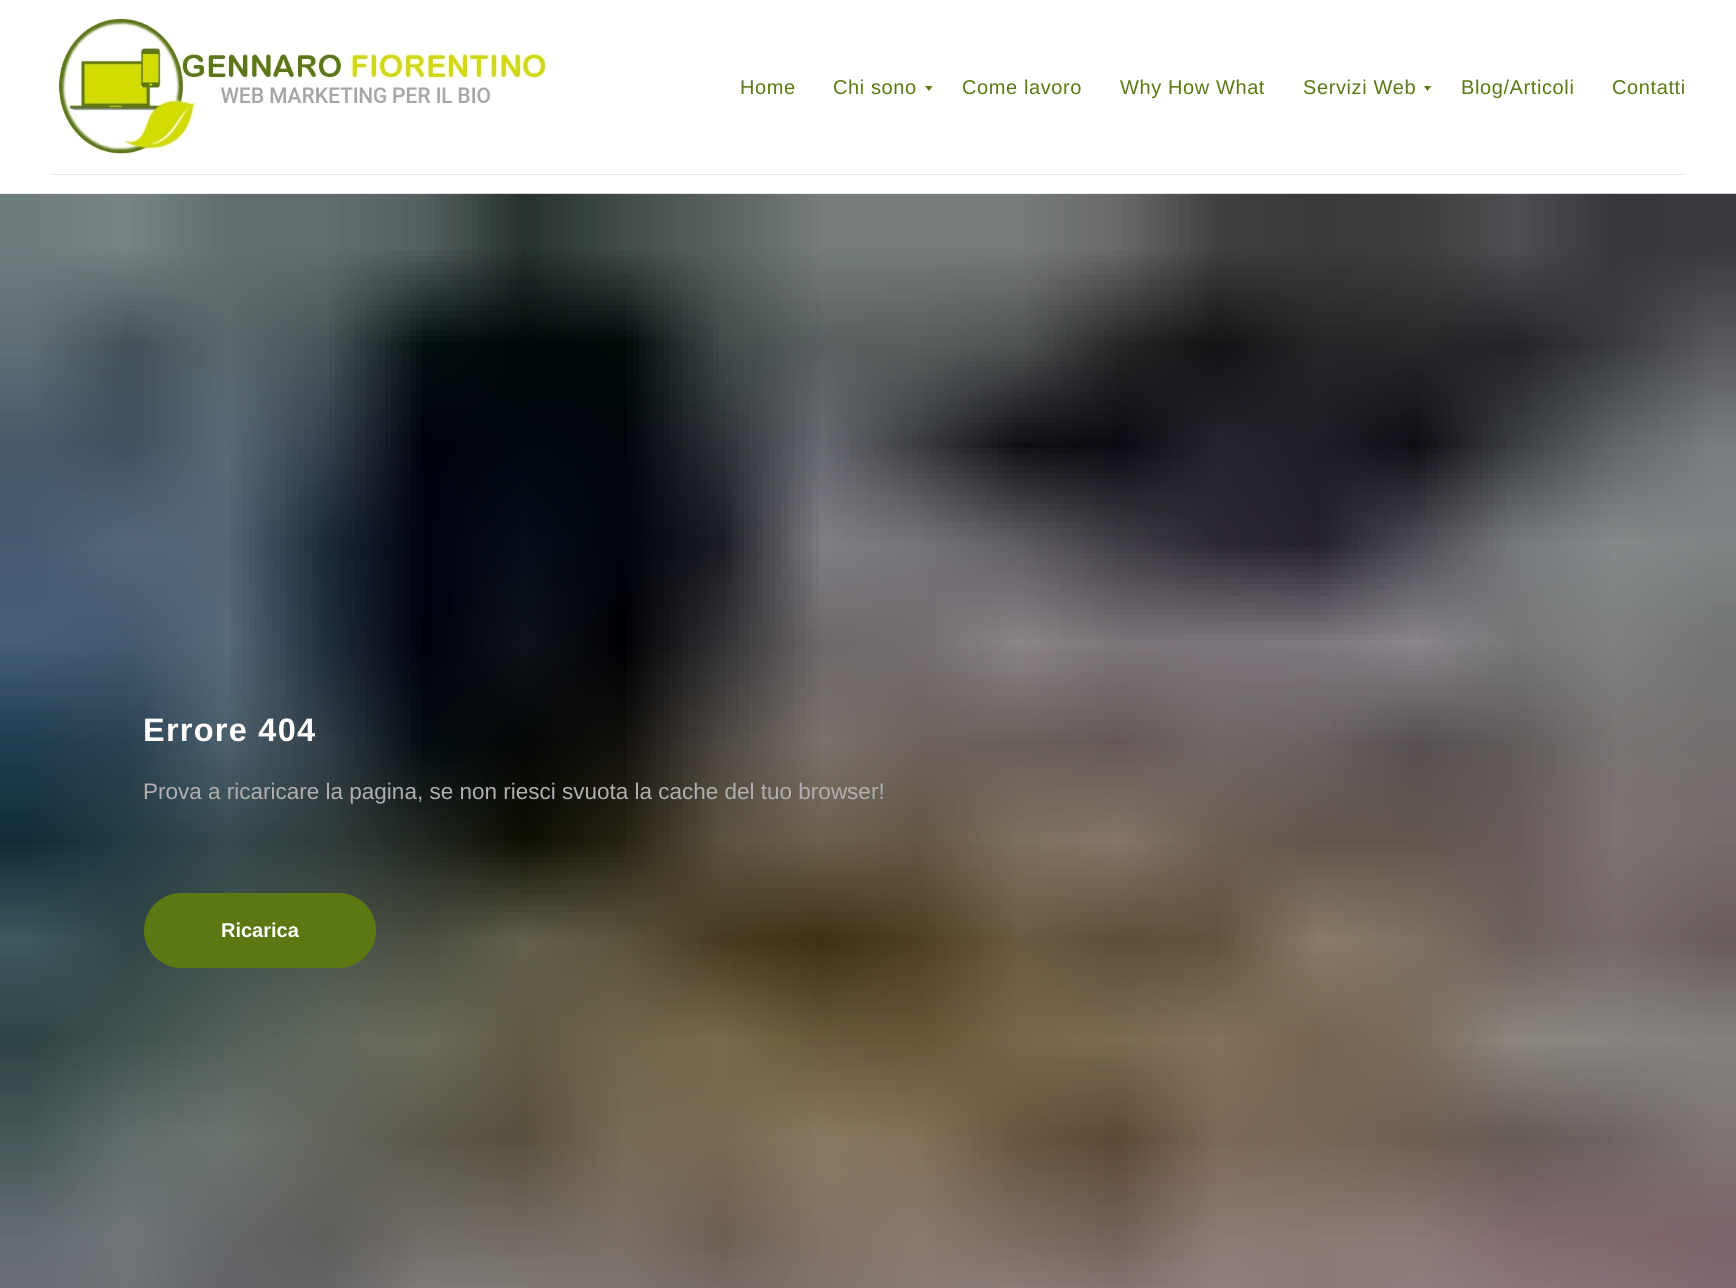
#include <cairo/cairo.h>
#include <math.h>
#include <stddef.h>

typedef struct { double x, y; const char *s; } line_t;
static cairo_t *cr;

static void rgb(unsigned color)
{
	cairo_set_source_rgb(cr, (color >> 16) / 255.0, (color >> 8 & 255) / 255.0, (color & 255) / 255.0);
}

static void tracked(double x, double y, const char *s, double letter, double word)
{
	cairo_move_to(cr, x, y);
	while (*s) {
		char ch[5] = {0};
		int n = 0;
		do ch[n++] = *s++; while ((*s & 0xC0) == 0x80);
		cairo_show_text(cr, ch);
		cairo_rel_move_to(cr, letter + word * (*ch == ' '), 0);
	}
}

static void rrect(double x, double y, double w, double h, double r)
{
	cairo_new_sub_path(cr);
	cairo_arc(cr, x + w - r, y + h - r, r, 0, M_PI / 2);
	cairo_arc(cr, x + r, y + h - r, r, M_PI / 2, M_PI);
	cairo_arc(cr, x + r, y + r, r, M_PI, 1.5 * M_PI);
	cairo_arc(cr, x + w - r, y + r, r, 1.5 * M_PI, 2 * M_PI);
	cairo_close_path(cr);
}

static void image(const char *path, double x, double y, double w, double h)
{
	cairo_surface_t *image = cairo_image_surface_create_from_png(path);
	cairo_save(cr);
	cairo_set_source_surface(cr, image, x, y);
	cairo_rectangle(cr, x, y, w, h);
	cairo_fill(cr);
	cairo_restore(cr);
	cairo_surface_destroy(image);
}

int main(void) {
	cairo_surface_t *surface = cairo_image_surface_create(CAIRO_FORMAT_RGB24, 1736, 1288);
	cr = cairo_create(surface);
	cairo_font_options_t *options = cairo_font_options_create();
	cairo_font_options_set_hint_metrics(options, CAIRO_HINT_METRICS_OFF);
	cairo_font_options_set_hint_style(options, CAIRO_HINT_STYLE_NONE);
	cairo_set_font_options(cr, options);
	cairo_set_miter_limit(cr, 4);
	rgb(0xffffff);
	cairo_paint(cr);
	image("img/1.png", 57, 17, 490, 138);
	rgb(0x5c7812);
	cairo_new_path(cr);
	cairo_move_to(cr, 925, 86);
	cairo_line_to(cr, 932.5, 86);
	cairo_line_to(cr, 929, 91);
	cairo_close_path(cr);
	cairo_fill(cr);
	cairo_new_path(cr);
	cairo_move_to(cr, 1424, 86);
	cairo_line_to(cr, 1431, 86);
	cairo_line_to(cr, 1427.5, 91);
	cairo_close_path(cr);
	cairo_fill(cr);
	rgb(0xeaeaea);
	cairo_rectangle(cr, 50, 174, 1636, 1);
	cairo_fill(cr);
	image("img/2.png", 0, 193, 1736, 1095);
	rgb(0x5c7812);
	rrect(144, 893, 232, 75, 37.5);
	cairo_fill(cr);
	cairo_select_font_face(cr, "Liberation Sans", CAIRO_FONT_SLANT_NORMAL, CAIRO_FONT_WEIGHT_NORMAL);
	cairo_set_font_size(cr, 20);
	{
		static const line_t items[] = {
			{740, 94, "Home"},
			{833, 94, "Chi sono"},
			{962, 94, "Come lavoro"},
			{1120, 94, "Why How What"},
			{1303, 94, "Servizi Web"},
			{1461, 94, "Blog/Articoli"},
			{1612, 94, "Contatti"},
		};
		for (size_t i = 0; i < sizeof items / sizeof *items; i++) {
			tracked(items[i].x, items[i].y, items[i].s, 0.6, 0);
		}
	}
	cairo_select_font_face(cr, "Liberation Sans", CAIRO_FONT_SLANT_NORMAL, CAIRO_FONT_WEIGHT_BOLD);
	cairo_set_font_size(cr, 32.5);
	rgb(0xffffff);
	tracked(143, 741, "Errore 404", 1.25, 0);
	cairo_select_font_face(cr, "Liberation Sans", CAIRO_FONT_SLANT_NORMAL, CAIRO_FONT_WEIGHT_NORMAL);
	cairo_set_font_size(cr, 22.5);
	rgb(0xafafaf);
	cairo_move_to(cr, 143, 799);
	cairo_show_text(cr, "Prova a ricaricare la pagina, se non riesci svuota la cache del tuo browser!");
	cairo_select_font_face(cr, "Liberation Sans", CAIRO_FONT_SLANT_NORMAL, CAIRO_FONT_WEIGHT_BOLD);
	cairo_set_font_size(cr, 20);
	rgb(0xffffff);
	cairo_move_to(cr, 221, 937);
	cairo_show_text(cr, "Ricarica");
	cairo_surface_write_to_png(surface, "page.png");
	cairo_font_options_destroy(options);
	cairo_destroy(cr);
	cairo_surface_destroy(surface);
	return 0;
}
